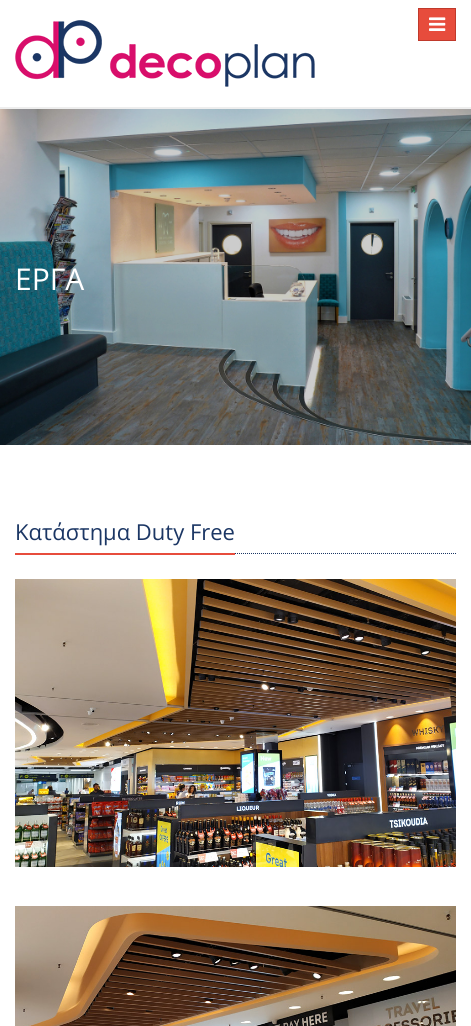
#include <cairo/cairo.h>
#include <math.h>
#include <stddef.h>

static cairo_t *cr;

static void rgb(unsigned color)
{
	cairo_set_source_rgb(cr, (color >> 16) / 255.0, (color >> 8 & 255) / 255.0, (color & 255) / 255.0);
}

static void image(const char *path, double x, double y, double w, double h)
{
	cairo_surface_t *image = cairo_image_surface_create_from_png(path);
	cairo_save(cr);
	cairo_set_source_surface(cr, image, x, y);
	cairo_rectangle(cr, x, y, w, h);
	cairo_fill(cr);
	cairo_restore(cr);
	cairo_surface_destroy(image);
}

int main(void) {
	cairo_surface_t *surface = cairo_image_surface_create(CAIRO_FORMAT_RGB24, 471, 1026);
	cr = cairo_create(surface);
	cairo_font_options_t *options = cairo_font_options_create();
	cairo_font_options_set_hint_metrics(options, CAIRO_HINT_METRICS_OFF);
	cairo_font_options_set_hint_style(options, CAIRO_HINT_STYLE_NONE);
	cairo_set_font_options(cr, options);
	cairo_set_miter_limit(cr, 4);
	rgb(0xffffff);
	cairo_paint(cr);
	rgb(0xeeeeee);
	cairo_rectangle(cr, 0, 107, 471, 2);
	cairo_fill(cr);
	image("img/1.png", 15, 20, 300, 67);
	rgb(0xe74c3c);
	cairo_rectangle(cr, 418.5, 8.5, 37, 32);
	cairo_fill_preserve(cr);
	rgb(0xc0392b);
	cairo_set_line_width(cr, 1);
	cairo_stroke(cr);
	image("img/2.png", 429, 17, 17, 14);
	image("img/3.png", 0, 109, 471, 336);
	cairo_new_path(cr);
	cairo_move_to(cr, 15, 553.5);
	cairo_line_to(cr, 456, 553.5);
	rgb(0x1b3664);
	cairo_set_dash(cr, (double[]){1, 1}, 2, 0);
	cairo_stroke(cr);
	rgb(0xe74c3c);
	cairo_rectangle(cr, 15, 553, 220, 2);
	cairo_fill(cr);
	image("img/4.png", 15, 579, 441, 288);
	image("img/5.png", 15, 906, 441, 120);
	cairo_select_font_face(cr, "Open Sans", CAIRO_FONT_SLANT_NORMAL, CAIRO_FONT_WEIGHT_NORMAL);
	cairo_set_font_size(cr, 30);
	rgb(0xffffff);
	cairo_move_to(cr, 15, 290);
	cairo_show_text(cr, "ΕΡΓΑ");
	cairo_set_font_size(cr, 22);
	rgb(0x1b3664);
	cairo_move_to(cr, 15, 540);
	cairo_show_text(cr, "Κατάστημα Duty Free");
	cairo_surface_write_to_png(surface, "page.png");
	cairo_font_options_destroy(options);
	cairo_destroy(cr);
	cairo_surface_destroy(surface);
	return 0;
}
